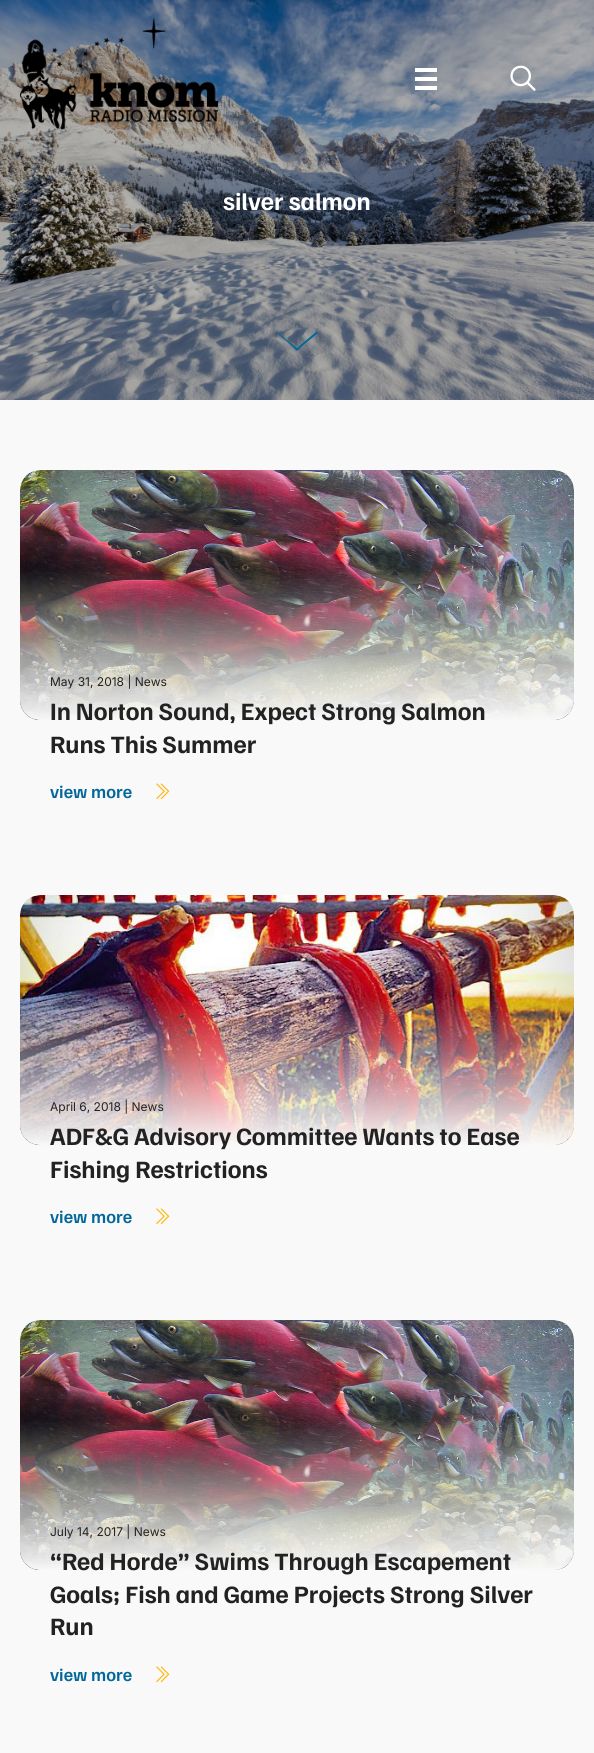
#include <cairo/cairo.h>
#include <math.h>
#include <stddef.h>

typedef struct { double x, y; const char *s; } line_t;
typedef struct { double x, y, w, h; unsigned color; } box_t;
static cairo_t *cr;

static void rgb(unsigned color)
{
	cairo_set_source_rgb(cr, (color >> 16) / 255.0, (color >> 8 & 255) / 255.0, (color & 255) / 255.0);
}

static void rrect(double x, double y, double w, double h, double r)
{
	cairo_new_sub_path(cr);
	cairo_arc(cr, x + w - r, y + h - r, r, 0, M_PI / 2);
	cairo_arc(cr, x + r, y + h - r, r, M_PI / 2, M_PI);
	cairo_arc(cr, x + r, y + r, r, M_PI, 1.5 * M_PI);
	cairo_arc(cr, x + w - r, y + r, r, 1.5 * M_PI, 2 * M_PI);
	cairo_close_path(cr);
}

static void image(const char *path, double x, double y, double w, double h)
{
	cairo_surface_t *image = cairo_image_surface_create_from_png(path);
	cairo_save(cr);
	cairo_set_source_surface(cr, image, x, y);
	cairo_rectangle(cr, x, y, w, h);
	cairo_fill(cr);
	cairo_restore(cr);
	cairo_surface_destroy(image);
}

int main(void) {
	cairo_surface_t *surface = cairo_image_surface_create(CAIRO_FORMAT_RGB24, 594, 1753);
	cr = cairo_create(surface);
	cairo_font_options_t *options = cairo_font_options_create();
	cairo_font_options_set_hint_metrics(options, CAIRO_HINT_METRICS_OFF);
	cairo_font_options_set_hint_style(options, CAIRO_HINT_STYLE_NONE);
	cairo_set_font_options(cr, options);
	cairo_set_miter_limit(cr, 4);
	cairo_pattern_t *gradient;
	rgb(0xffffff);
	cairo_paint(cr);
	image("img/3.png", 0, 0, 594, 400);
	image("img/1.png", 20, 18, 198, 112);
	{
		static const box_t items[] = {
			{415, 68, 22, 4, 0xffffff},
			{415, 77, 22, 4, 0xffffff},
			{415, 86, 22, 4, 0xffffff},
		};
		for (size_t i = 0; i < sizeof items / sizeof *items; i++) {
			rgb(items[i].color);
			cairo_rectangle(cr, items[i].x, items[i].y, items[i].w, items[i].h);
			cairo_fill(cr);
		}
	}
	image("img/2.png", 510, 65, 26, 26);
	rgb(0x02679a);
	cairo_new_path(cr);
	cairo_move_to(cr, 276, 332);
	cairo_curve_to(cr, 276, 332, 277, 331, 277, 332);
	cairo_line_to(cr, 297, 348);
	cairo_line_to(cr, 316, 332);
	cairo_curve_to(cr, 317, 331, 319, 332, 318, 333);
	cairo_line_to(cr, 301, 347);
	cairo_curve_to(cr, 296, 352, 298, 352, 293, 347);
	cairo_close_path(cr);
	cairo_fill(cr);
	rgb(0xf9f9f9);
	cairo_rectangle(cr, 0, 400, 594, 1353);
	cairo_fill(cr);
	image("img/4.png", 20, 470, 554, 250);
	gradient = cairo_pattern_create_linear(297, 470, 297, 720);
	cairo_pattern_add_color_stop_rgba(gradient, 0.4, 0.973, 0.973, 0.973, 0);
	cairo_pattern_add_color_stop_rgba(gradient, 1, 0.973, 0.973, 0.973, 1);
	cairo_set_source(cr, gradient);
	cairo_pattern_destroy(gradient);
	rrect(20, 470, 554, 250, 20);
	cairo_fill(cr);
	image("img/5.png", 156, 783, 14, 17);
	image("img/6.png", 20, 895, 554, 250);
	gradient = cairo_pattern_create_linear(297, 895, 297, 1145);
	cairo_pattern_add_color_stop_rgba(gradient, 0.4, 0.973, 0.973, 0.973, 0);
	cairo_pattern_add_color_stop_rgba(gradient, 1, 0.973, 0.973, 0.973, 1);
	cairo_set_source(cr, gradient);
	cairo_pattern_destroy(gradient);
	rrect(20, 895, 554, 250, 20);
	cairo_fill(cr);
	image("img/5.png", 156, 1208, 14, 17);
	image("img/7.png", 20, 1320, 554, 250);
	gradient = cairo_pattern_create_linear(297, 1320, 297, 1570);
	cairo_pattern_add_color_stop_rgba(gradient, 0.4, 0.973, 0.973, 0.973, 0);
	cairo_pattern_add_color_stop_rgba(gradient, 1, 0.973, 0.973, 0.973, 1);
	cairo_set_source(cr, gradient);
	cairo_pattern_destroy(gradient);
	rrect(20, 1320, 554, 250, 20);
	cairo_fill(cr);
	image("img/5.png", 156, 1666, 14, 17);
	cairo_select_font_face(cr, "Familjen Grotesk", CAIRO_FONT_SLANT_NORMAL, CAIRO_FONT_WEIGHT_BOLD);
	cairo_set_font_size(cr, 25);
	rgb(0xffffff);
	cairo_move_to(cr, 223, 210);
	cairo_show_text(cr, "silver salmon");
	cairo_select_font_face(cr, "Inter", CAIRO_FONT_SLANT_NORMAL, CAIRO_FONT_WEIGHT_NORMAL);
	cairo_set_font_size(cr, 12);
	rgb(0x222222);
	cairo_move_to(cr, 50, 686);
	cairo_show_text(cr, "May 31, 2018 | News");
	cairo_select_font_face(cr, "Familjen Grotesk", CAIRO_FONT_SLANT_NORMAL, CAIRO_FONT_WEIGHT_BOLD);
	cairo_set_font_size(cr, 25);
	cairo_move_to(cr, 50, 720);
	cairo_show_text(cr, "In Norton Sound, Expect Strong Salmon");
	cairo_move_to(cr, 50, 753);
	cairo_show_text(cr, "Runs This Summer");
	cairo_select_font_face(cr, "Familjen Grotesk SemiBold", CAIRO_FONT_SLANT_NORMAL, CAIRO_FONT_WEIGHT_NORMAL);
	cairo_set_font_size(cr, 18);
	rgb(0x02679a);
	cairo_move_to(cr, 50, 798);
	cairo_show_text(cr, "view more");
	cairo_select_font_face(cr, "Inter", CAIRO_FONT_SLANT_NORMAL, CAIRO_FONT_WEIGHT_NORMAL);
	cairo_set_font_size(cr, 12);
	rgb(0x222222);
	cairo_move_to(cr, 50, 1111);
	cairo_show_text(cr, "April 6, 2018 | News");
	cairo_select_font_face(cr, "Familjen Grotesk", CAIRO_FONT_SLANT_NORMAL, CAIRO_FONT_WEIGHT_BOLD);
	cairo_set_font_size(cr, 25);
	cairo_move_to(cr, 50, 1145);
	cairo_show_text(cr, "ADF&G Advisory Committee Wants to Ease");
	cairo_move_to(cr, 50, 1178);
	cairo_show_text(cr, "Fishing Restrictions");
	cairo_select_font_face(cr, "Familjen Grotesk SemiBold", CAIRO_FONT_SLANT_NORMAL, CAIRO_FONT_WEIGHT_NORMAL);
	cairo_set_font_size(cr, 18);
	rgb(0x02679a);
	cairo_move_to(cr, 50, 1223);
	cairo_show_text(cr, "view more");
	cairo_select_font_face(cr, "Inter", CAIRO_FONT_SLANT_NORMAL, CAIRO_FONT_WEIGHT_NORMAL);
	cairo_set_font_size(cr, 12);
	rgb(0x222222);
	cairo_move_to(cr, 50, 1536);
	cairo_show_text(cr, "July 14, 2017 | News");
	cairo_select_font_face(cr, "Familjen Grotesk", CAIRO_FONT_SLANT_NORMAL, CAIRO_FONT_WEIGHT_BOLD);
	cairo_set_font_size(cr, 25);
	{
		static const line_t items[] = {
			{50, 1570, "“Red Horde” Swims Through Escapement"},
			{50, 1603, "Goals; Fish and Game Projects Strong Silver"},
			{50, 1635, "Run"},
		};
		for (size_t i = 0; i < sizeof items / sizeof *items; i++) {
			cairo_move_to(cr, items[i].x, items[i].y);
			cairo_show_text(cr, items[i].s);
		}
	}
	cairo_select_font_face(cr, "Familjen Grotesk SemiBold", CAIRO_FONT_SLANT_NORMAL, CAIRO_FONT_WEIGHT_NORMAL);
	cairo_set_font_size(cr, 18);
	rgb(0x02679a);
	cairo_move_to(cr, 50, 1681);
	cairo_show_text(cr, "view more");
	cairo_surface_write_to_png(surface, "page.png");
	cairo_font_options_destroy(options);
	cairo_destroy(cr);
	cairo_surface_destroy(surface);
	return 0;
}
